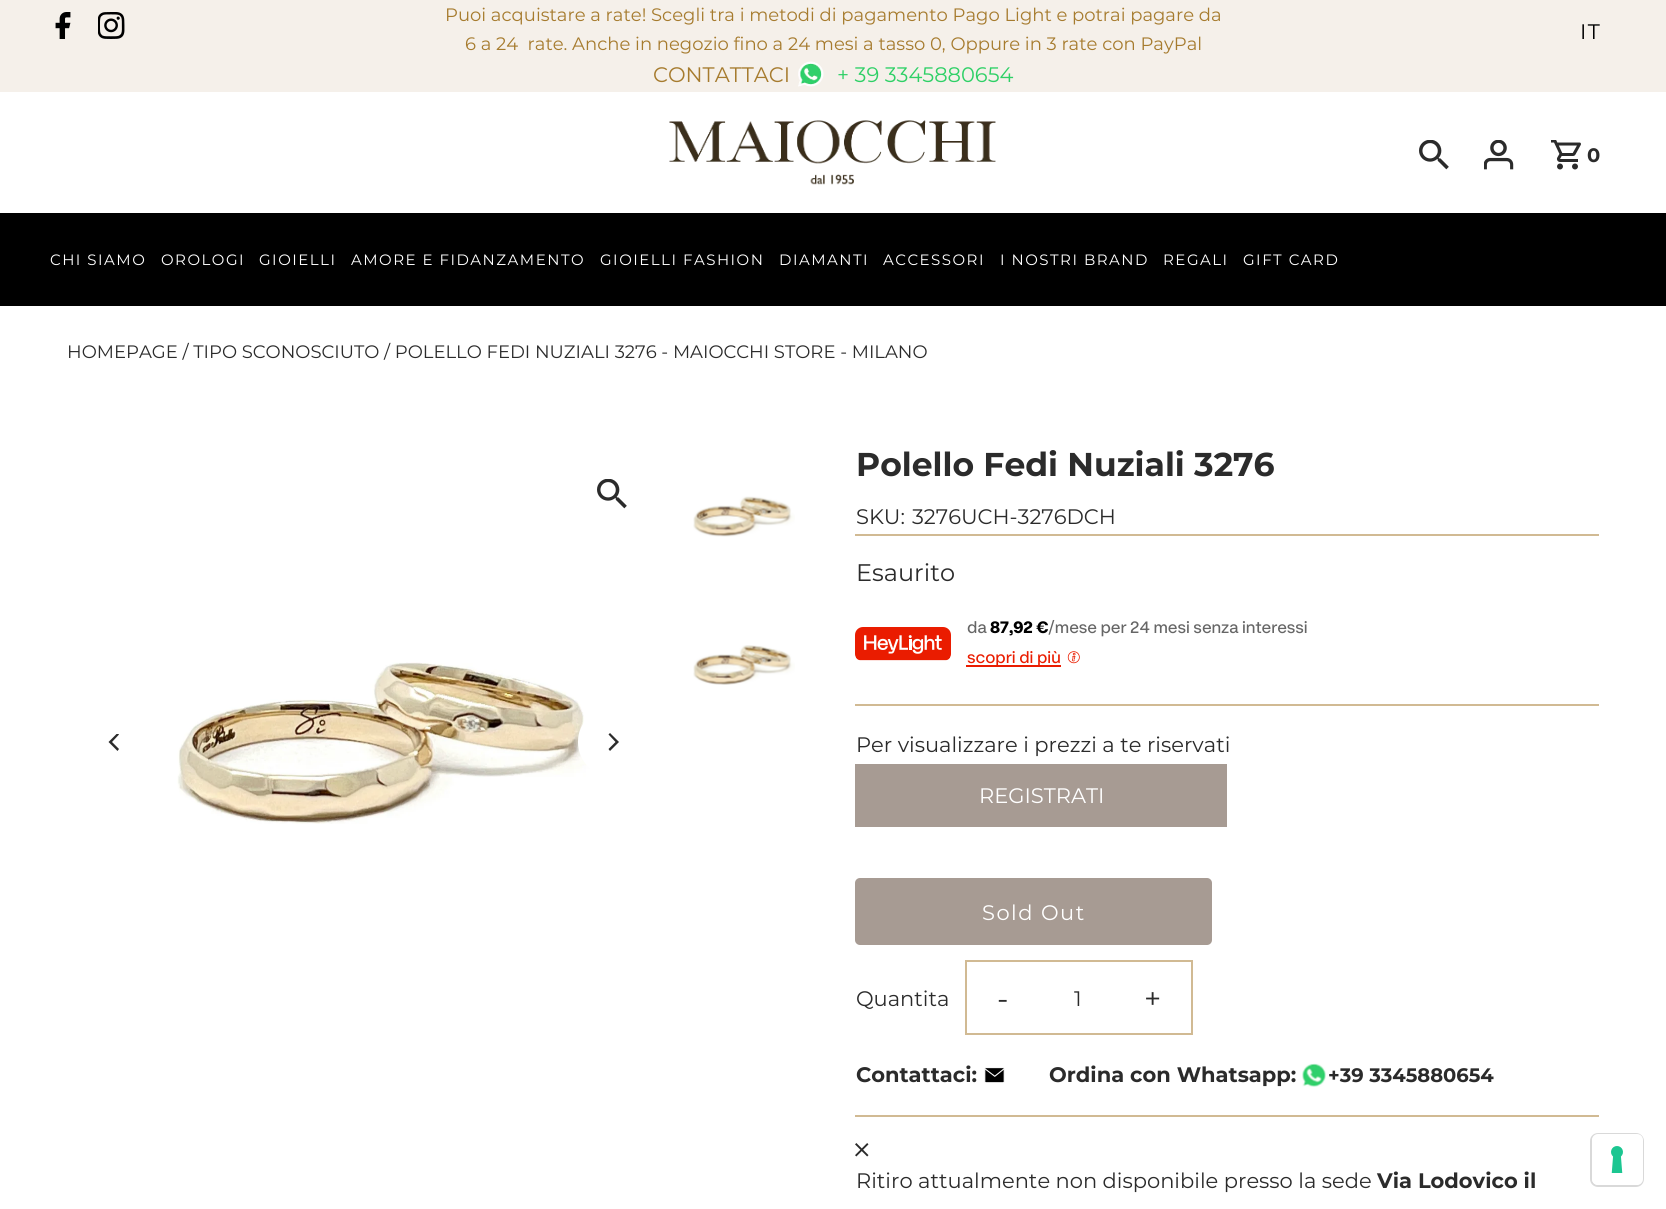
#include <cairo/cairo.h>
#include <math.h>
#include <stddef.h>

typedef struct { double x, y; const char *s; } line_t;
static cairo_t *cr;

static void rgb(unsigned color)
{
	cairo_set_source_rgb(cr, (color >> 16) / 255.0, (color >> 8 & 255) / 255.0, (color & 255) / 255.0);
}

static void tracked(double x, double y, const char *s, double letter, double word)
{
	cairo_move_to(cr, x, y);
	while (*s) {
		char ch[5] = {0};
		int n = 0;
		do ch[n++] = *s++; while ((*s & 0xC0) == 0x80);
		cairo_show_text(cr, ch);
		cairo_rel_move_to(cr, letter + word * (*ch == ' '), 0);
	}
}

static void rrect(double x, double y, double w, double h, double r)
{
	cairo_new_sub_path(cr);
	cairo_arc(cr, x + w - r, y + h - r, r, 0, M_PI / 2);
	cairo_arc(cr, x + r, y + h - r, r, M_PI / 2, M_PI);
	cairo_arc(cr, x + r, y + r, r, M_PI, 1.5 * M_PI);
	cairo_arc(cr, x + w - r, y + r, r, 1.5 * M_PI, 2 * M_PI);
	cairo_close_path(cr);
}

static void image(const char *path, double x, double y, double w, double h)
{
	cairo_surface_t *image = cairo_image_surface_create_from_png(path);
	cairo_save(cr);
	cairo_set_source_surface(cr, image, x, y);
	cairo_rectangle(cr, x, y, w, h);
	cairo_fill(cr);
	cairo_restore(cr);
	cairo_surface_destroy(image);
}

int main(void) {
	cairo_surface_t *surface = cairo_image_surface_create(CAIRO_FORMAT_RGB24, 1666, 1209);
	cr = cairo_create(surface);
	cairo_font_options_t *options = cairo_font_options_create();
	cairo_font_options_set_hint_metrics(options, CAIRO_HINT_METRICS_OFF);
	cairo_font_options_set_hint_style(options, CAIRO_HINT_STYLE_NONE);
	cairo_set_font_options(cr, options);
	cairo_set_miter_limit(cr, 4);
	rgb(0xffffff);
	cairo_paint(cr);
	rgb(0xf5f0ea);
	cairo_rectangle(cr, 0, 0, 1666, 92);
	cairo_fill(cr);
	image("img/1.png", 55, 12, 16, 27);
	image("img/2.png", 98, 12, 27, 27);
	image("img/3.png", 798, 61, 26, 26);
	image("img/4.png", 669, 120, 327, 65);
	image("img/5.png", 1419, 140, 30, 30);
	image("img/6.png", 1484, 140, 30, 30);
	image("img/7.png", 1551, 140, 30, 30);
	rgb(0x000000);
	cairo_rectangle(cr, 0, 213, 1666, 93);
	cairo_fill(cr);
	image("img/5.png", 597, 479, 30, 30);
	image("img/8.png", 177, 662, 426, 162);
	cairo_save(cr);
	cairo_rectangle(cr, 107, 734, 18, 18);
	cairo_clip(cr);
	rgb(0x2b2b2b);
	cairo_new_path(cr);
	cairo_move_to(cr, 108.5, 742);
	cairo_line_to(cr, 117.5, 751);
	cairo_line_to(cr, 119, 749);
	cairo_line_to(cr, 112, 742);
	cairo_line_to(cr, 119, 734.5);
	cairo_line_to(cr, 117.5, 733);
	cairo_close_path(cr);
	cairo_fill(cr);
	cairo_restore(cr);
	rgb(0xffffff);
	rrect(578, 708, 67, 68, 33.5);
	cairo_fill(cr);
	rgb(0x2b2b2b);
	cairo_new_path(cr);
	cairo_move_to(cr, 619, 742);
	cairo_line_to(cr, 610, 733);
	cairo_line_to(cr, 608.5, 734.5);
	cairo_line_to(cr, 615.5, 742);
	cairo_line_to(cr, 608.5, 749);
	cairo_line_to(cr, 610, 751);
	cairo_close_path(cr);
	cairo_fill(cr);
	image("img/9.png", 693, 496, 102, 41);
	image("img/10.png", 693, 645, 102, 40);
	rgb(0xd1ba93);
	cairo_rectangle(cr, 855, 534, 744, 2);
	cairo_fill(cr);
	cairo_rectangle(cr, 855, 704, 744, 2);
	cairo_fill(cr);
	image("img/11.png", 855, 627, 96, 34);
	rgb(0xea1c00);
	cairo_rectangle(cr, 966, 665, 95, 2);
	cairo_fill(cr);
	rgb(0xa79b93);
	cairo_rectangle(cr, 855, 764, 372, 63);
	cairo_fill(cr);
	rrect(855, 878, 357, 67, 5);
	cairo_fill(cr);
	cairo_rectangle(cr, 966, 961, 226, 73);
	rgb(0xd1ba93);
	cairo_stroke(cr);
	image("img/12.png", 984, 1067, 21, 16);
	image("img/13.png", 1302, 1063, 24, 24);
	cairo_rectangle(cr, 855, 1115, 744, 2);
	cairo_fill(cr);
	image("img/14.png", 855, 1143, 14, 14);
	rrect(1591, 1134, 52, 52, 7);
	rgb(0xd9d9d9);
	cairo_stroke(cr);
	rgb(0xffffff);
	rrect(1592, 1134, 51, 51, 6);
	cairo_fill(cr);
	image("img/15.png", 1611, 1146, 12, 27);
	cairo_select_font_face(cr, "Montserrat", CAIRO_FONT_SLANT_NORMAL, CAIRO_FONT_WEIGHT_NORMAL);
	cairo_set_font_size(cr, 18);
	rgb(0xa67b2e);
	cairo_move_to(cr, 445, 21);
	cairo_show_text(cr, "Puoi acquistare a rate! Scegli tra i metodi di pagamento Pago Light e potrai pagare da");
	cairo_move_to(cr, 465, 50);
	cairo_show_text(cr, "6 a 24  rate. Anche in negozio fino a 24 mesi a tasso 0, Oppure in 3 rate con PayPal");
	cairo_set_font_size(cr, 21);
	cairo_move_to(cr, 653, 82);
	cairo_show_text(cr, "CONTATTACI");
	rgb(0x2ed066);
	cairo_move_to(cr, 837, 82);
	cairo_show_text(cr, "+ 39 3345880654");
	rgb(0x000000);
	tracked(1580, 39, "IT", 1.5, 0);
	cairo_select_font_face(cr, "Montserrat", CAIRO_FONT_SLANT_NORMAL, CAIRO_FONT_WEIGHT_BOLD);
	cairo_set_font_size(cr, 19.5);
	rgb(0x2b2b2b);
	tracked(1587, 162, "0", 1.5, 0);
	cairo_select_font_face(cr, "Montserrat", CAIRO_FONT_SLANT_NORMAL, CAIRO_FONT_WEIGHT_NORMAL);
	cairo_set_font_size(cr, 15);
	rgb(0xffffff);
	{
		static const line_t items[] = {
			{50, 265, "CHI SIAMO"},
			{161, 265, "OROLOGI"},
			{259, 265, "GIOIELLI"},
			{351, 265, "AMORE E FIDANZAMENTO"},
			{600, 265, "GIOIELLI FASHION"},
			{779, 265, "DIAMANTI"},
			{883, 265, "ACCESSORI"},
			{1000, 265, "I NOSTRI BRAND"},
			{1163, 265, "REGALI"},
			{1243, 265, "GIFT CARD"},
		};
		for (size_t i = 0; i < sizeof items / sizeof *items; i++) {
			tracked(items[i].x, items[i].y, items[i].s, 1.5, 0);
		}
	}
	cairo_set_font_size(cr, 18);
	rgb(0x2b2b2b);
	cairo_move_to(cr, 67, 358);
	cairo_show_text(cr, "HOMEPAGE / TIPO SCONOSCIUTO / POLELLO FEDI NUZIALI 3276 - MAIOCCHI STORE - MILANO");
	cairo_select_font_face(cr, "Montserrat", CAIRO_FONT_SLANT_NORMAL, CAIRO_FONT_WEIGHT_BOLD);
	cairo_set_font_size(cr, 33);
	cairo_move_to(cr, 856, 476);
	cairo_show_text(cr, "Polello Fedi Nuziali 3276");
	cairo_select_font_face(cr, "Montserrat", CAIRO_FONT_SLANT_NORMAL, CAIRO_FONT_WEIGHT_NORMAL);
	cairo_set_font_size(cr, 21);
	cairo_move_to(cr, 856, 524);
	cairo_show_text(cr, "SKU:");
	cairo_move_to(cr, 912, 524);
	cairo_show_text(cr, "3276UCH-3276DCH");
	cairo_set_font_size(cr, 24);
	cairo_move_to(cr, 856, 581);
	cairo_show_text(cr, "Esaurito");
	cairo_select_font_face(cr, "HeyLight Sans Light", CAIRO_FONT_SLANT_NORMAL, CAIRO_FONT_WEIGHT_NORMAL);
	cairo_set_font_size(cr, 16.5);
	rgb(0x666666);
	cairo_move_to(cr, 967, 633);
	cairo_show_text(cr, "da");
	cairo_select_font_face(cr, "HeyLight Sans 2 Light", CAIRO_FONT_SLANT_NORMAL, CAIRO_FONT_WEIGHT_NORMAL);
	rgb(0x000000);
	cairo_move_to(cr, 990, 633);
	cairo_show_text(cr, "87,92 €");
	cairo_select_font_face(cr, "HeyLight Sans Light", CAIRO_FONT_SLANT_NORMAL, CAIRO_FONT_WEIGHT_NORMAL);
	rgb(0x666666);
	cairo_move_to(cr, 1048, 633);
	cairo_show_text(cr, "/mese per 24 mesi senza interessi");
	rgb(0xea1c00);
	cairo_move_to(cr, 967, 663);
	cairo_show_text(cr, "scopri di più");
	cairo_move_to(cr, 1067, 663);
	cairo_show_text(cr, "ⓘ");
	cairo_select_font_face(cr, "Montserrat", CAIRO_FONT_SLANT_NORMAL, CAIRO_FONT_WEIGHT_NORMAL);
	cairo_set_font_size(cr, 21);
	rgb(0x2b2b2b);
	cairo_move_to(cr, 856, 752);
	cairo_show_text(cr, "Per visualizzare i prezzi a te riservati");
	rgb(0xffffff);
	cairo_move_to(cr, 979, 803);
	cairo_show_text(cr, "REGISTRATI");
	tracked(982, 920, "Sold Out", 1.5, 0);
	rgb(0x2b2b2b);
	cairo_move_to(cr, 856, 1006);
	cairo_show_text(cr, "Quantita");
	cairo_set_font_size(cr, 30);
	tracked(997, 1009, "-", 1.5, 0);
	cairo_set_font_size(cr, 21);
	cairo_move_to(cr, 1074, 1006);
	cairo_show_text(cr, "1");
	cairo_set_font_size(cr, 30);
	tracked(1144, 1009, "+", 1.5, 0);
	cairo_select_font_face(cr, "Montserrat", CAIRO_FONT_SLANT_NORMAL, CAIRO_FONT_WEIGHT_BOLD);
	cairo_set_font_size(cr, 21);
	cairo_move_to(cr, 856, 1082);
	cairo_show_text(cr, "Contattaci:");
	cairo_move_to(cr, 1049, 1082);
	cairo_show_text(cr, "Ordina con Whatsapp:");
	cairo_set_font_size(cr, 19.5);
	cairo_move_to(cr, 1328, 1082);
	cairo_show_text(cr, "+39 3345880654");
	cairo_select_font_face(cr, "Montserrat", CAIRO_FONT_SLANT_NORMAL, CAIRO_FONT_WEIGHT_NORMAL);
	cairo_set_font_size(cr, 21);
	cairo_move_to(cr, 856, 1188);
	cairo_show_text(cr, "Ritiro attualmente non disponibile presso la sede");
	cairo_select_font_face(cr, "Montserrat", CAIRO_FONT_SLANT_NORMAL, CAIRO_FONT_WEIGHT_BOLD);
	cairo_move_to(cr, 1377, 1188);
	cairo_show_text(cr, "Via Lodovico il");
	cairo_surface_write_to_png(surface, "page.png");
	cairo_font_options_destroy(options);
	cairo_destroy(cr);
	cairo_surface_destroy(surface);
	return 0;
}
